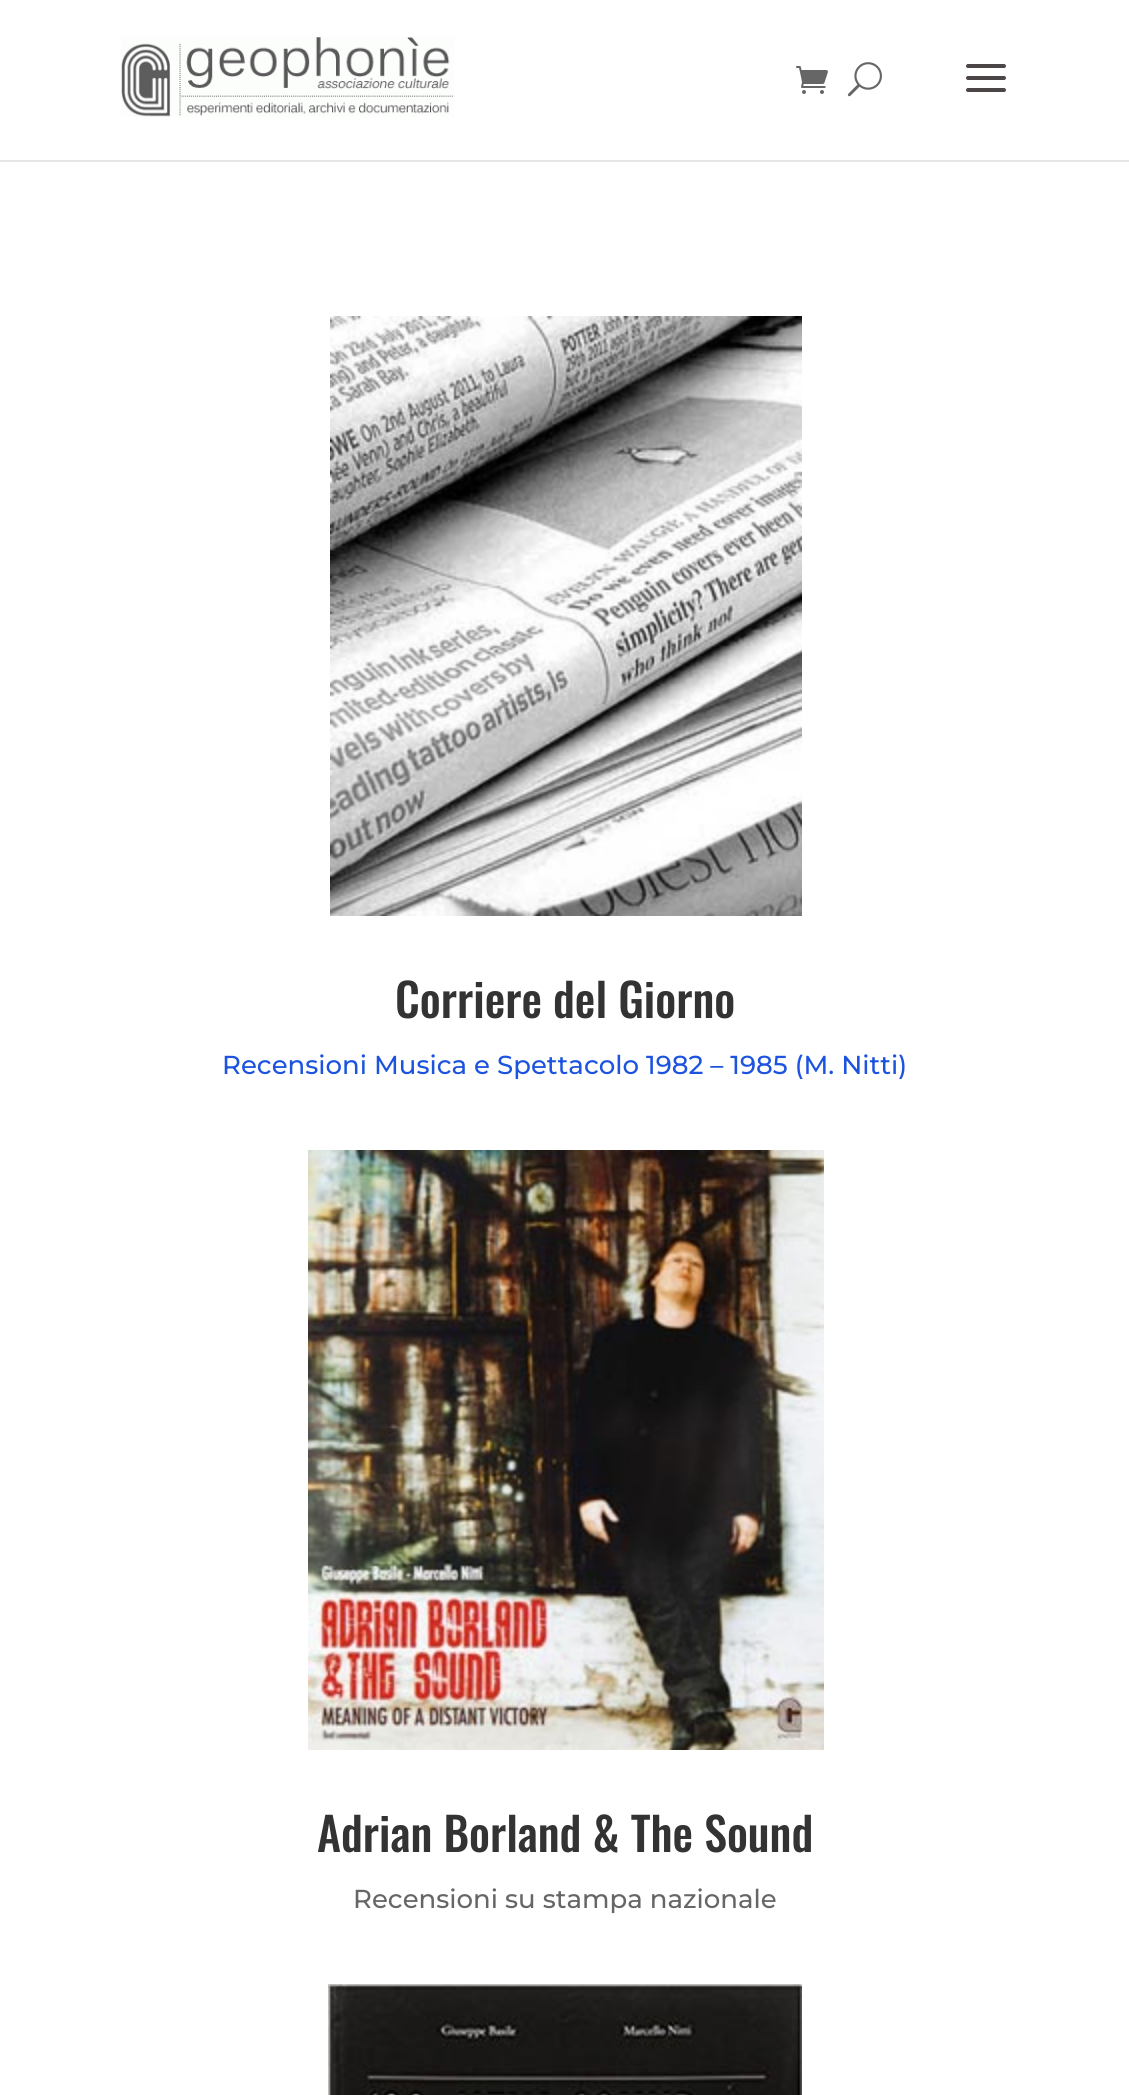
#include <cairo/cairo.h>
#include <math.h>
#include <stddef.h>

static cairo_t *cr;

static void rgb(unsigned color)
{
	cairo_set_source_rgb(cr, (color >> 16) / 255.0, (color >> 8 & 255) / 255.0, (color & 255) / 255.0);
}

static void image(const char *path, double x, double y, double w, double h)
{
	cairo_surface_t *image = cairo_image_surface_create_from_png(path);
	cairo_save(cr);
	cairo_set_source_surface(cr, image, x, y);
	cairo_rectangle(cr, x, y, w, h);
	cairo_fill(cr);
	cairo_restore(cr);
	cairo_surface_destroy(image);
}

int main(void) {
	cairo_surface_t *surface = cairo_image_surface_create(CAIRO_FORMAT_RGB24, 1129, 2095);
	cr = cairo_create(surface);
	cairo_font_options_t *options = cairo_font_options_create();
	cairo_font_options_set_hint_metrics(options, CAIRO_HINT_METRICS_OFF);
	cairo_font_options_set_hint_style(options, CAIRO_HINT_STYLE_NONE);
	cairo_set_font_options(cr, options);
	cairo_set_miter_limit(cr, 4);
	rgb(0xffffff);
	cairo_paint(cr);
	rgb(0xe6e6e6);
	cairo_rectangle(cr, 0, 160, 1129, 2);
	cairo_fill(cr);
	image("img/1.png", 121, 37, 333, 80);
	image("img/2.png", 796, 66, 32, 28);
	image("img/3.png", 847, 62, 35, 35);
	image("img/4.png", 966, 64, 40, 28);
	image("img/5.png", 330, 316, 472, 600);
	image("img/6.png", 308, 1150, 516, 600);
	image("img/7.png", 328, 1984, 474, 111);
	cairo_select_font_face(cr, "Oswald Medium", CAIRO_FONT_SLANT_NORMAL, CAIRO_FONT_WEIGHT_NORMAL);
	cairo_set_font_size(cr, 46);
	rgb(0x333333);
	cairo_move_to(cr, 395, 1018);
	cairo_show_text(cr, "Corriere del Giorno");
	cairo_select_font_face(cr, "Montserrat Thin", CAIRO_FONT_SLANT_NORMAL, CAIRO_FONT_WEIGHT_NORMAL);
	cairo_set_font_size(cr, 26);
	rgb(0x1c53df);
	cairo_move_to(cr, 222, 1074);
	cairo_show_text(cr, "Recensioni Musica e Spettacolo 1982 – 1985 (M. Nitti)");
	cairo_select_font_face(cr, "Oswald Medium", CAIRO_FONT_SLANT_NORMAL, CAIRO_FONT_WEIGHT_NORMAL);
	cairo_set_font_size(cr, 46);
	rgb(0x333333);
	cairo_move_to(cr, 317, 1852);
	cairo_show_text(cr, "Adrian Borland & The Sound");
	cairo_select_font_face(cr, "Montserrat Thin", CAIRO_FONT_SLANT_NORMAL, CAIRO_FONT_WEIGHT_NORMAL);
	cairo_set_font_size(cr, 26);
	rgb(0x666666);
	cairo_move_to(cr, 353, 1908);
	cairo_show_text(cr, "Recensioni su stampa nazionale");
	cairo_surface_write_to_png(surface, "page.png");
	cairo_font_options_destroy(options);
	cairo_destroy(cr);
	cairo_surface_destroy(surface);
	return 0;
}
